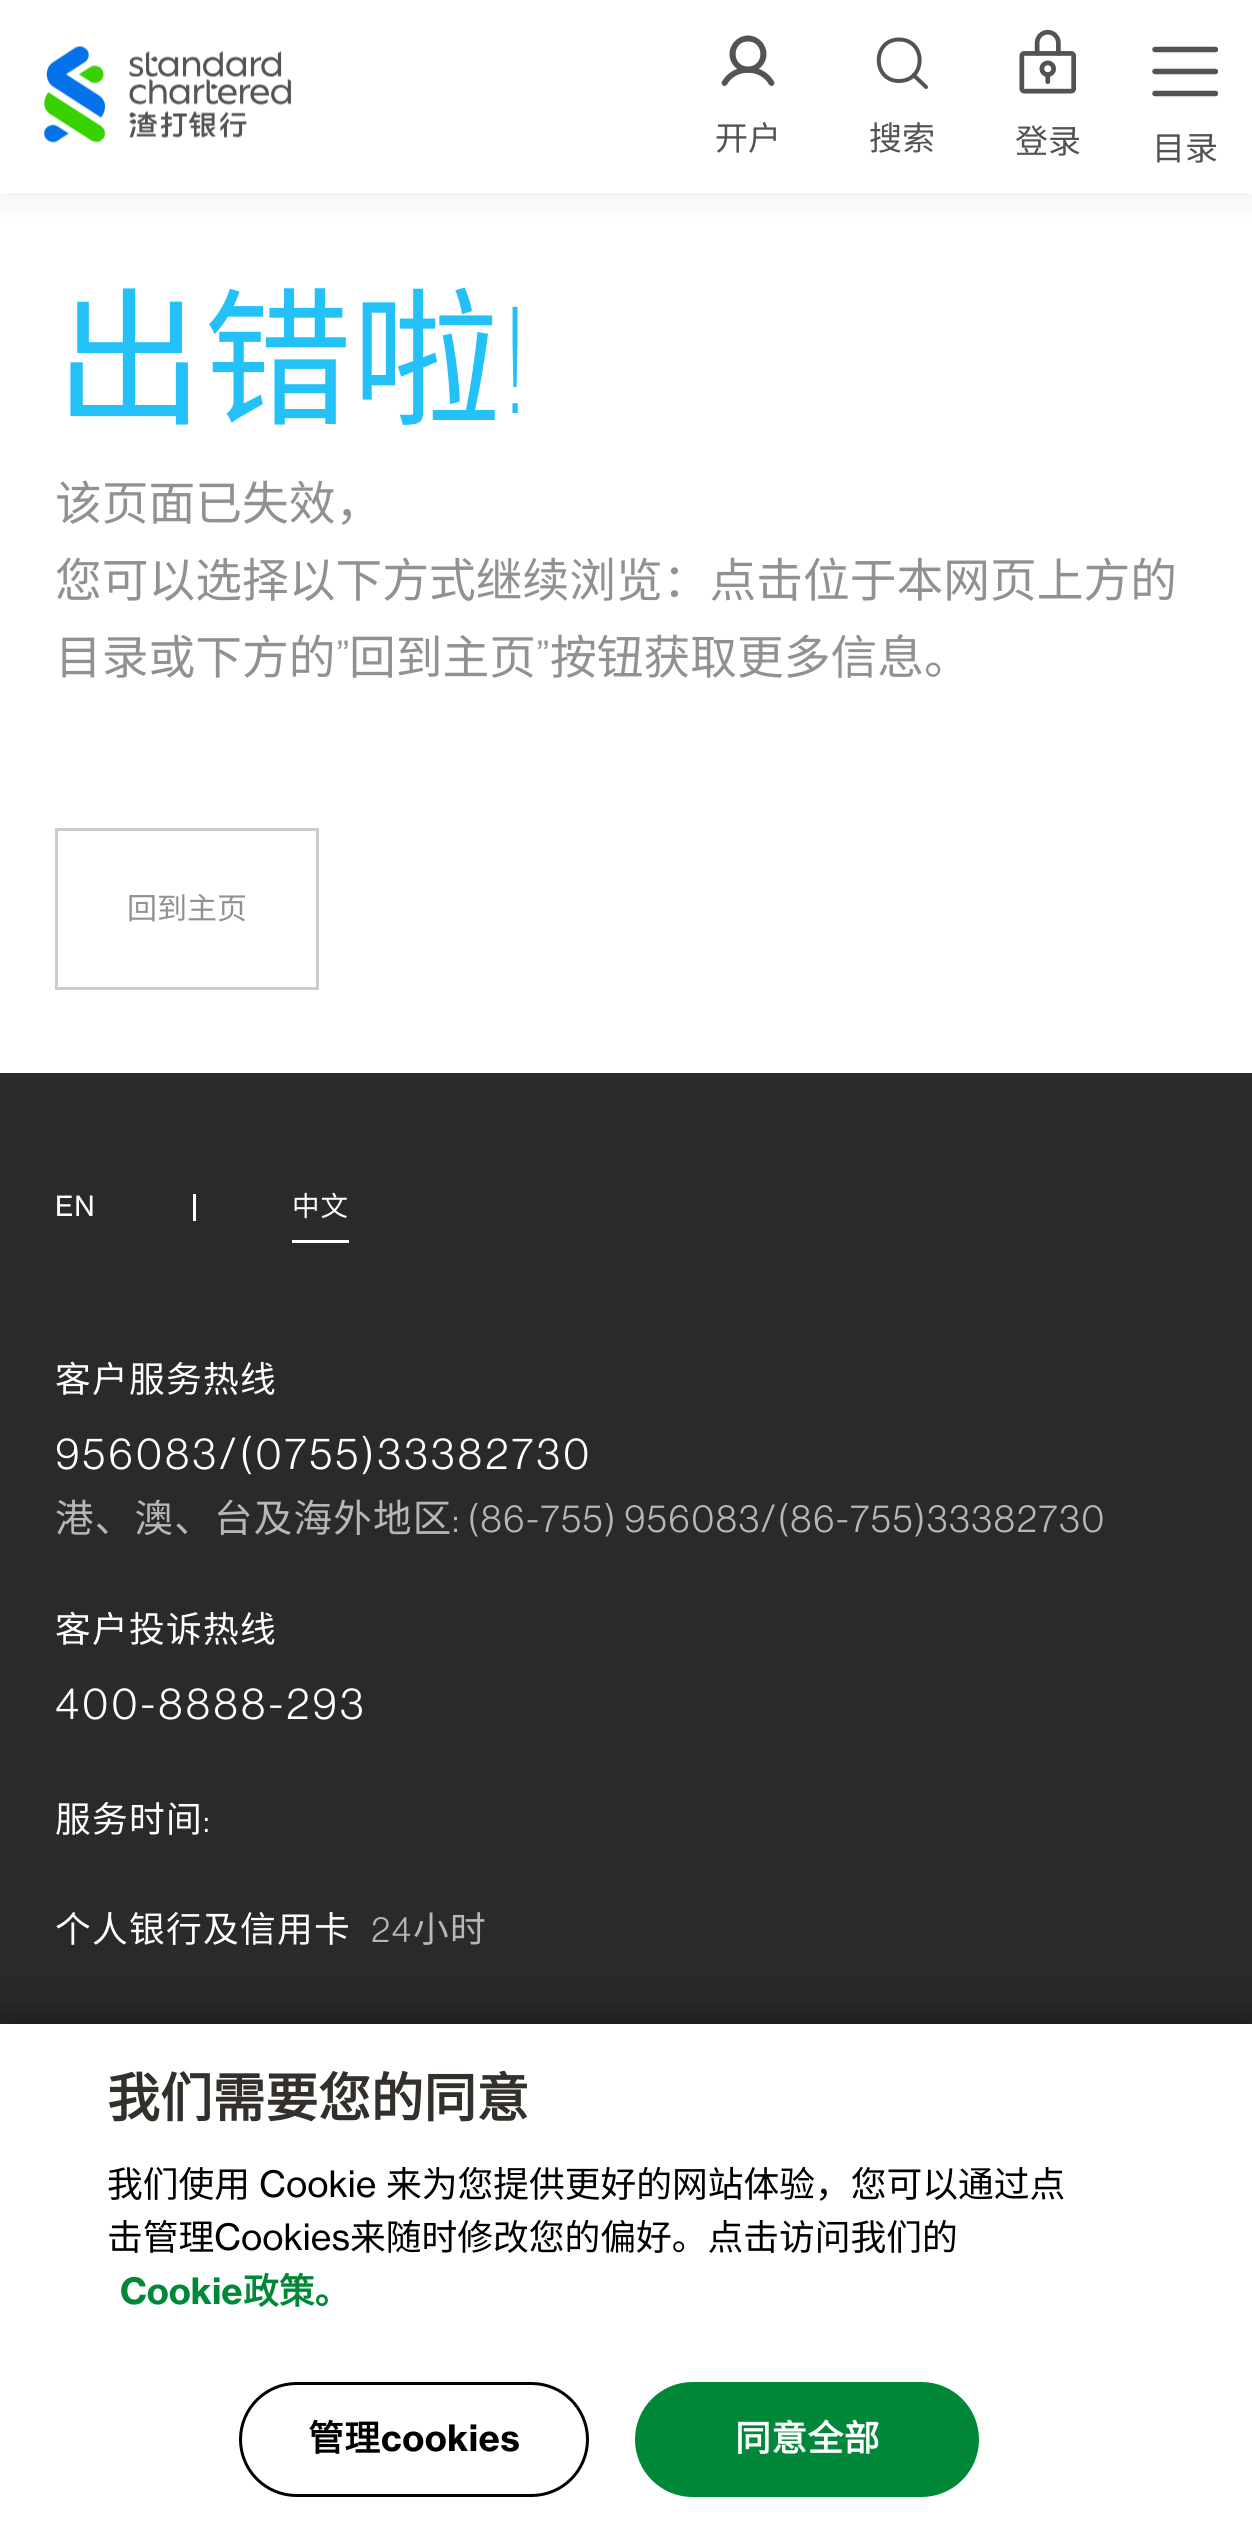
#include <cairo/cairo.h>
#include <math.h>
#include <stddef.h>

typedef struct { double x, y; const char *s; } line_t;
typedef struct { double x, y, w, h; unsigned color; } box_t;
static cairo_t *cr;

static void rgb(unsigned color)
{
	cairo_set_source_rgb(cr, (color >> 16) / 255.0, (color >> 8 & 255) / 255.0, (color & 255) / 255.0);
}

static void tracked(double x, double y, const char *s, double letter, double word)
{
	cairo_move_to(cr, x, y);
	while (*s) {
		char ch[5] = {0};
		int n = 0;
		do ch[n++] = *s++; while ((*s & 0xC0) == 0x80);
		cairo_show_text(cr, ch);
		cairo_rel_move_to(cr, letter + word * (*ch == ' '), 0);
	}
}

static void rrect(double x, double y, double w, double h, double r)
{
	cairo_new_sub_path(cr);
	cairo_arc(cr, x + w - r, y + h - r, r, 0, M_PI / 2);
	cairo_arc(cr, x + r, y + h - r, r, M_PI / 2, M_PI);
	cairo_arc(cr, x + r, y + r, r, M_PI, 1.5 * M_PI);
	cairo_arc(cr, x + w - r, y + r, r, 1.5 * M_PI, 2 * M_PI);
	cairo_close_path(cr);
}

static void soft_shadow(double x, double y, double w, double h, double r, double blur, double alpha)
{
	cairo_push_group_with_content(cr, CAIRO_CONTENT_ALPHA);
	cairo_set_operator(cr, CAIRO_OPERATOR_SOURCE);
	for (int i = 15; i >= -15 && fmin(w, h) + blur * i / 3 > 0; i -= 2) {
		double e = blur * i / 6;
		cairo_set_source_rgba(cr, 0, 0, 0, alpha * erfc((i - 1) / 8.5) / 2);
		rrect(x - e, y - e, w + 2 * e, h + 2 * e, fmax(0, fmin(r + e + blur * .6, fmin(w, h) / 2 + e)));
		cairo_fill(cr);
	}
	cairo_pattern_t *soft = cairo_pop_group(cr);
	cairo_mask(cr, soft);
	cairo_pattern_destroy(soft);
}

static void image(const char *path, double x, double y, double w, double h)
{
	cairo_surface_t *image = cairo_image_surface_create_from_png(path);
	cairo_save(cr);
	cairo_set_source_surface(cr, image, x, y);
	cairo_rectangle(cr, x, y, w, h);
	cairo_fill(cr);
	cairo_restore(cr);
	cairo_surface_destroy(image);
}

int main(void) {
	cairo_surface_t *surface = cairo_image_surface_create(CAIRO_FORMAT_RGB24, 1252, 2530);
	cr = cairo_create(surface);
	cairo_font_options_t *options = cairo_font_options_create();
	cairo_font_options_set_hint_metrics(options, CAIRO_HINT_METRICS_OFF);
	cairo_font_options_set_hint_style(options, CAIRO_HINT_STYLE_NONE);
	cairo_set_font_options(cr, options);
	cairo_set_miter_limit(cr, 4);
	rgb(0xffffff);
	cairo_paint(cr);
	rgb(0x000000);
	soft_shadow(0, 6, 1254, 192, 0, 18, 0.07);
	rgb(0xffffff);
	cairo_rectangle(cr, 0, 0, 1252, 193);
	cairo_fill(cr);
	image("img/1.png", 44, 46, 247, 97);
	rgb(0x525355);
	cairo_set_fill_rule(cr, CAIRO_FILL_RULE_EVEN_ODD);
	cairo_new_path(cr);
	cairo_move_to(cr, 729.5, 54);
	cairo_curve_to(cr, 729.5, 44, 738, 35.5, 748, 35.5);
	cairo_curve_to(cr, 758, 35.5, 766.5, 44, 766.5, 54);
	cairo_curve_to(cr, 766.5, 64, 758, 72.5, 748, 72.5);
	cairo_curve_to(cr, 738, 72.5, 729.5, 64, 729.5, 54);
	cairo_close_path(cr);
	cairo_move_to(cr, 748, 41.5);
	cairo_curve_to(cr, 731.5, 41.5, 731.5, 66.5, 748, 66.5);
	cairo_curve_to(cr, 764.5, 66.5, 764.5, 41.5, 748, 41.5);
	cairo_close_path(cr);
	cairo_fill(cr);
	cairo_new_path(cr);
	cairo_move_to(cr, 724.5, 83);
	cairo_curve_to(cr, 734.5, 65.5, 761.5, 65.5, 771.5, 83);
	cairo_set_line_width(cr, 5.8);
	cairo_set_line_cap(cr, CAIRO_LINE_CAP_ROUND);
	cairo_set_line_join(cr, CAIRO_LINE_JOIN_ROUND);
	cairo_stroke(cr);
	cairo_new_path(cr);
	cairo_move_to(cr, 899, 81);
	cairo_curve_to(cr, 926.5, 81, 926.5, 39.5, 899, 39.5);
	cairo_curve_to(cr, 872, 39.5, 872, 81, 899, 81);
	cairo_close_path(cr);
	cairo_move_to(cr, 913.5, 75);
	cairo_line_to(cr, 926, 87);
	cairo_set_line_width(cr, 4);
	cairo_stroke(cr);
	image("img/2.png", 1019, 29, 58, 65);
	image("img/3.png", 1152, 46, 66, 51);
	cairo_rectangle(cr, 56.5, 829.5, 261, 159);
	rgb(0xcccccc);
	cairo_set_line_width(cr, 3);
	cairo_set_line_cap(cr, CAIRO_LINE_CAP_BUTT);
	cairo_set_line_join(cr, CAIRO_LINE_JOIN_MITER);
	cairo_stroke(cr);
	{
		static const box_t items[] = {
			{0, 1073, 1252, 951, 0x2b2929},
			{193, 1194, 3, 27, 0xffffff},
			{292, 1240, 57, 3, 0xffffff},
		};
		for (size_t i = 0; i < sizeof items / sizeof *items; i++) {
			rgb(items[i].color);
			cairo_rectangle(cr, items[i].x, items[i].y, items[i].w, items[i].h);
			cairo_fill(cr);
		}
	}
	rgb(0x000000);
	soft_shadow(0, 2024, 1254, 506, 0, 25, 0.5);
	rgb(0xffffff);
	cairo_rectangle(cr, 0, 2024, 1252, 506);
	cairo_fill(cr);
	rrect(240.5, 2383.5, 347, 112, 56);
	rgb(0x000000);
	cairo_stroke(cr);
	rgb(0x008738);
	rrect(636.5, 2383.5, 341, 112, 56);
	cairo_fill_preserve(cr);
	cairo_stroke(cr);
	cairo_select_font_face(cr, "Noto Sans CJK SC", CAIRO_FONT_SLANT_NORMAL, CAIRO_FONT_WEIGHT_NORMAL);
	cairo_set_font_size(cr, 33);
	rgb(0x525355);
	{
		static const line_t items[] = {
			{715, 150, "开户"},
			{869, 150, "搜索"},
			{1015, 153, "登录"},
			{1152, 160, "目录"},
		};
		for (size_t i = 0; i < sizeof items / sizeof *items; i++) {
			cairo_move_to(cr, items[i].x, items[i].y);
			cairo_show_text(cr, items[i].s);
		}
	}
	cairo_set_font_size(cr, 148.5);
	rgb(0x24c1f9);
	cairo_move_to(cr, 55, 413);
	cairo_show_text(cr, "出错啦");
	cairo_select_font_face(cr, "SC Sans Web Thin", CAIRO_FONT_SLANT_NORMAL, CAIRO_FONT_WEIGHT_NORMAL);
	cairo_move_to(cr, 501, 413);
	cairo_show_text(cr, "!");
	cairo_select_font_face(cr, "Noto Sans CJK SC", CAIRO_FONT_SLANT_NORMAL, CAIRO_FONT_WEIGHT_NORMAL);
	cairo_set_font_size(cr, 46.75);
	rgb(0x919191);
	{
		static const line_t items[] = {
			{55, 520, "该页面已失效，"},
			{55, 597, "您可以选择以下方式继续浏览：点击位于本网页上方的"},
			{55, 674, "目录或下方的"},
		};
		for (size_t i = 0; i < sizeof items / sizeof *items; i++) {
			cairo_move_to(cr, items[i].x, items[i].y);
			cairo_show_text(cr, items[i].s);
		}
	}
	cairo_select_font_face(cr, "SC Sans Web Light", CAIRO_FONT_SLANT_NORMAL, CAIRO_FONT_WEIGHT_NORMAL);
	cairo_move_to(cr, 336, 674);
	cairo_show_text(cr, "”");
	cairo_select_font_face(cr, "Noto Sans CJK SC", CAIRO_FONT_SLANT_NORMAL, CAIRO_FONT_WEIGHT_NORMAL);
	cairo_move_to(cr, 349, 674);
	cairo_show_text(cr, "回到主页");
	cairo_select_font_face(cr, "SC Sans Web Light", CAIRO_FONT_SLANT_NORMAL, CAIRO_FONT_WEIGHT_NORMAL);
	cairo_move_to(cr, 536, 674);
	cairo_show_text(cr, "”");
	cairo_select_font_face(cr, "Noto Sans CJK SC", CAIRO_FONT_SLANT_NORMAL, CAIRO_FONT_WEIGHT_NORMAL);
	cairo_move_to(cr, 550, 674);
	cairo_show_text(cr, "按钮获取更多信息。");
	cairo_set_font_size(cr, 30);
	cairo_move_to(cr, 127, 919);
	cairo_show_text(cr, "回到主页");
	cairo_select_font_face(cr, "SC Sans Web", CAIRO_FONT_SLANT_NORMAL, CAIRO_FONT_WEIGHT_NORMAL);
	cairo_set_font_size(cr, 27.5);
	rgb(0xffffff);
	tracked(55, 1216, "EN", 1, 0);
	cairo_select_font_face(cr, "Noto Sans CJK SC", CAIRO_FONT_SLANT_NORMAL, CAIRO_FONT_WEIGHT_NORMAL);
	tracked(292, 1216, "中文", 1, 0);
	cairo_set_font_size(cr, 35.75);
	tracked(55, 1392, "客户服务热线", 1.25, 0);
	cairo_select_font_face(cr, "SC Sans Web Light", CAIRO_FONT_SLANT_NORMAL, CAIRO_FONT_WEIGHT_NORMAL);
	cairo_set_font_size(cr, 44);
	tracked(55, 1469, "956083/(0755)33382730", 2.75, 0);
	cairo_select_font_face(cr, "Noto Sans CJK SC", CAIRO_FONT_SLANT_NORMAL, CAIRO_FONT_WEIGHT_NORMAL);
	cairo_set_font_size(cr, 38.5);
	rgb(0xb7b7b7);
	tracked(55, 1532, "港、澳、台及海外地区", 1.25, 0);
	cairo_select_font_face(cr, "SC Sans Web Light", CAIRO_FONT_SLANT_NORMAL, CAIRO_FONT_WEIGHT_NORMAL);
	tracked(452, 1532, ": (86-755) 956083/(86-755)33382730", 1.25, 0);
	cairo_select_font_face(cr, "Noto Sans CJK SC", CAIRO_FONT_SLANT_NORMAL, CAIRO_FONT_WEIGHT_NORMAL);
	cairo_set_font_size(cr, 35.75);
	rgb(0xffffff);
	tracked(55, 1642, "客户投诉热线", 1.25, 0);
	cairo_select_font_face(cr, "SC Sans Web Light", CAIRO_FONT_SLANT_NORMAL, CAIRO_FONT_WEIGHT_NORMAL);
	cairo_set_font_size(cr, 44);
	tracked(55, 1719, "400-8888-293", 2.75, 0);
	cairo_select_font_face(cr, "Noto Sans CJK SC", CAIRO_FONT_SLANT_NORMAL, CAIRO_FONT_WEIGHT_NORMAL);
	cairo_set_font_size(cr, 35.75);
	tracked(55, 1832, "服务时间", 1.25, 0);
	cairo_select_font_face(cr, "SC Sans Web Light", CAIRO_FONT_SLANT_NORMAL, CAIRO_FONT_WEIGHT_NORMAL);
	tracked(203, 1832, ":", 1.25, 0);
	cairo_select_font_face(cr, "Noto Sans CJK SC", CAIRO_FONT_SLANT_NORMAL, CAIRO_FONT_WEIGHT_NORMAL);
	tracked(55, 1942, "个人银行及信用卡", 1.25, 0);
	cairo_select_font_face(cr, "SC Sans Web Light", CAIRO_FONT_SLANT_NORMAL, CAIRO_FONT_WEIGHT_NORMAL);
	rgb(0xb7b7b7);
	tracked(371, 1942, "24", 1.25, 0);
	cairo_select_font_face(cr, "Noto Sans CJK SC", CAIRO_FONT_SLANT_NORMAL, CAIRO_FONT_WEIGHT_NORMAL);
	tracked(413, 1942, "小时", 1.25, 0);
	cairo_select_font_face(cr, "Noto Sans CJK SC", CAIRO_FONT_SLANT_NORMAL, CAIRO_FONT_WEIGHT_BOLD);
	cairo_set_font_size(cr, 52.75);
	rgb(0x33302b);
	cairo_move_to(cr, 107, 2117);
	cairo_show_text(cr, "我们需要您的同意");
	cairo_select_font_face(cr, "Noto Sans CJK SC", CAIRO_FONT_SLANT_NORMAL, CAIRO_FONT_WEIGHT_NORMAL);
	cairo_set_font_size(cr, 35.75);
	rgb(0x000000);
	cairo_move_to(cr, 107, 2197);
	cairo_show_text(cr, "我们使用");
	cairo_select_font_face(cr, "SC Sans Web", CAIRO_FONT_SLANT_NORMAL, CAIRO_FONT_WEIGHT_NORMAL);
	cairo_move_to(cr, 259, 2197);
	cairo_show_text(cr, "Cookie");
	cairo_select_font_face(cr, "Noto Sans CJK SC", CAIRO_FONT_SLANT_NORMAL, CAIRO_FONT_WEIGHT_NORMAL);
	cairo_move_to(cr, 386, 2197);
	cairo_show_text(cr, "来为您提供更好的网站体验，您可以通过点");
	cairo_move_to(cr, 107, 2250);
	cairo_show_text(cr, "击管理");
	cairo_select_font_face(cr, "SC Sans Web", CAIRO_FONT_SLANT_NORMAL, CAIRO_FONT_WEIGHT_NORMAL);
	cairo_move_to(cr, 214, 2250);
	cairo_show_text(cr, "Cookies");
	cairo_select_font_face(cr, "Noto Sans CJK SC", CAIRO_FONT_SLANT_NORMAL, CAIRO_FONT_WEIGHT_NORMAL);
	cairo_move_to(cr, 350, 2250);
	cairo_show_text(cr, "来随时修改您的偏好。点击访问我们的");
	cairo_select_font_face(cr, "SC Sans Web", CAIRO_FONT_SLANT_NORMAL, CAIRO_FONT_WEIGHT_BOLD);
	rgb(0x008738);
	cairo_move_to(cr, 120, 2304);
	cairo_show_text(cr, "Cookie");
	cairo_select_font_face(cr, "Noto Sans CJK SC", CAIRO_FONT_SLANT_NORMAL, CAIRO_FONT_WEIGHT_BOLD);
	cairo_move_to(cr, 243, 2304);
	cairo_show_text(cr, "政策。");
	rgb(0x000000);
	tracked(308, 2451, "管理", 0.5, 0);
	cairo_select_font_face(cr, "SC Sans Web", CAIRO_FONT_SLANT_NORMAL, CAIRO_FONT_WEIGHT_BOLD);
	tracked(381, 2451, "cookies", 0.5, 0);
	cairo_select_font_face(cr, "Noto Sans CJK SC", CAIRO_FONT_SLANT_NORMAL, CAIRO_FONT_WEIGHT_BOLD);
	rgb(0xffffff);
	tracked(735, 2451, "同意全部", 0.5, 0);
	cairo_surface_write_to_png(surface, "page.png");
	cairo_font_options_destroy(options);
	cairo_destroy(cr);
	cairo_surface_destroy(surface);
	return 0;
}
